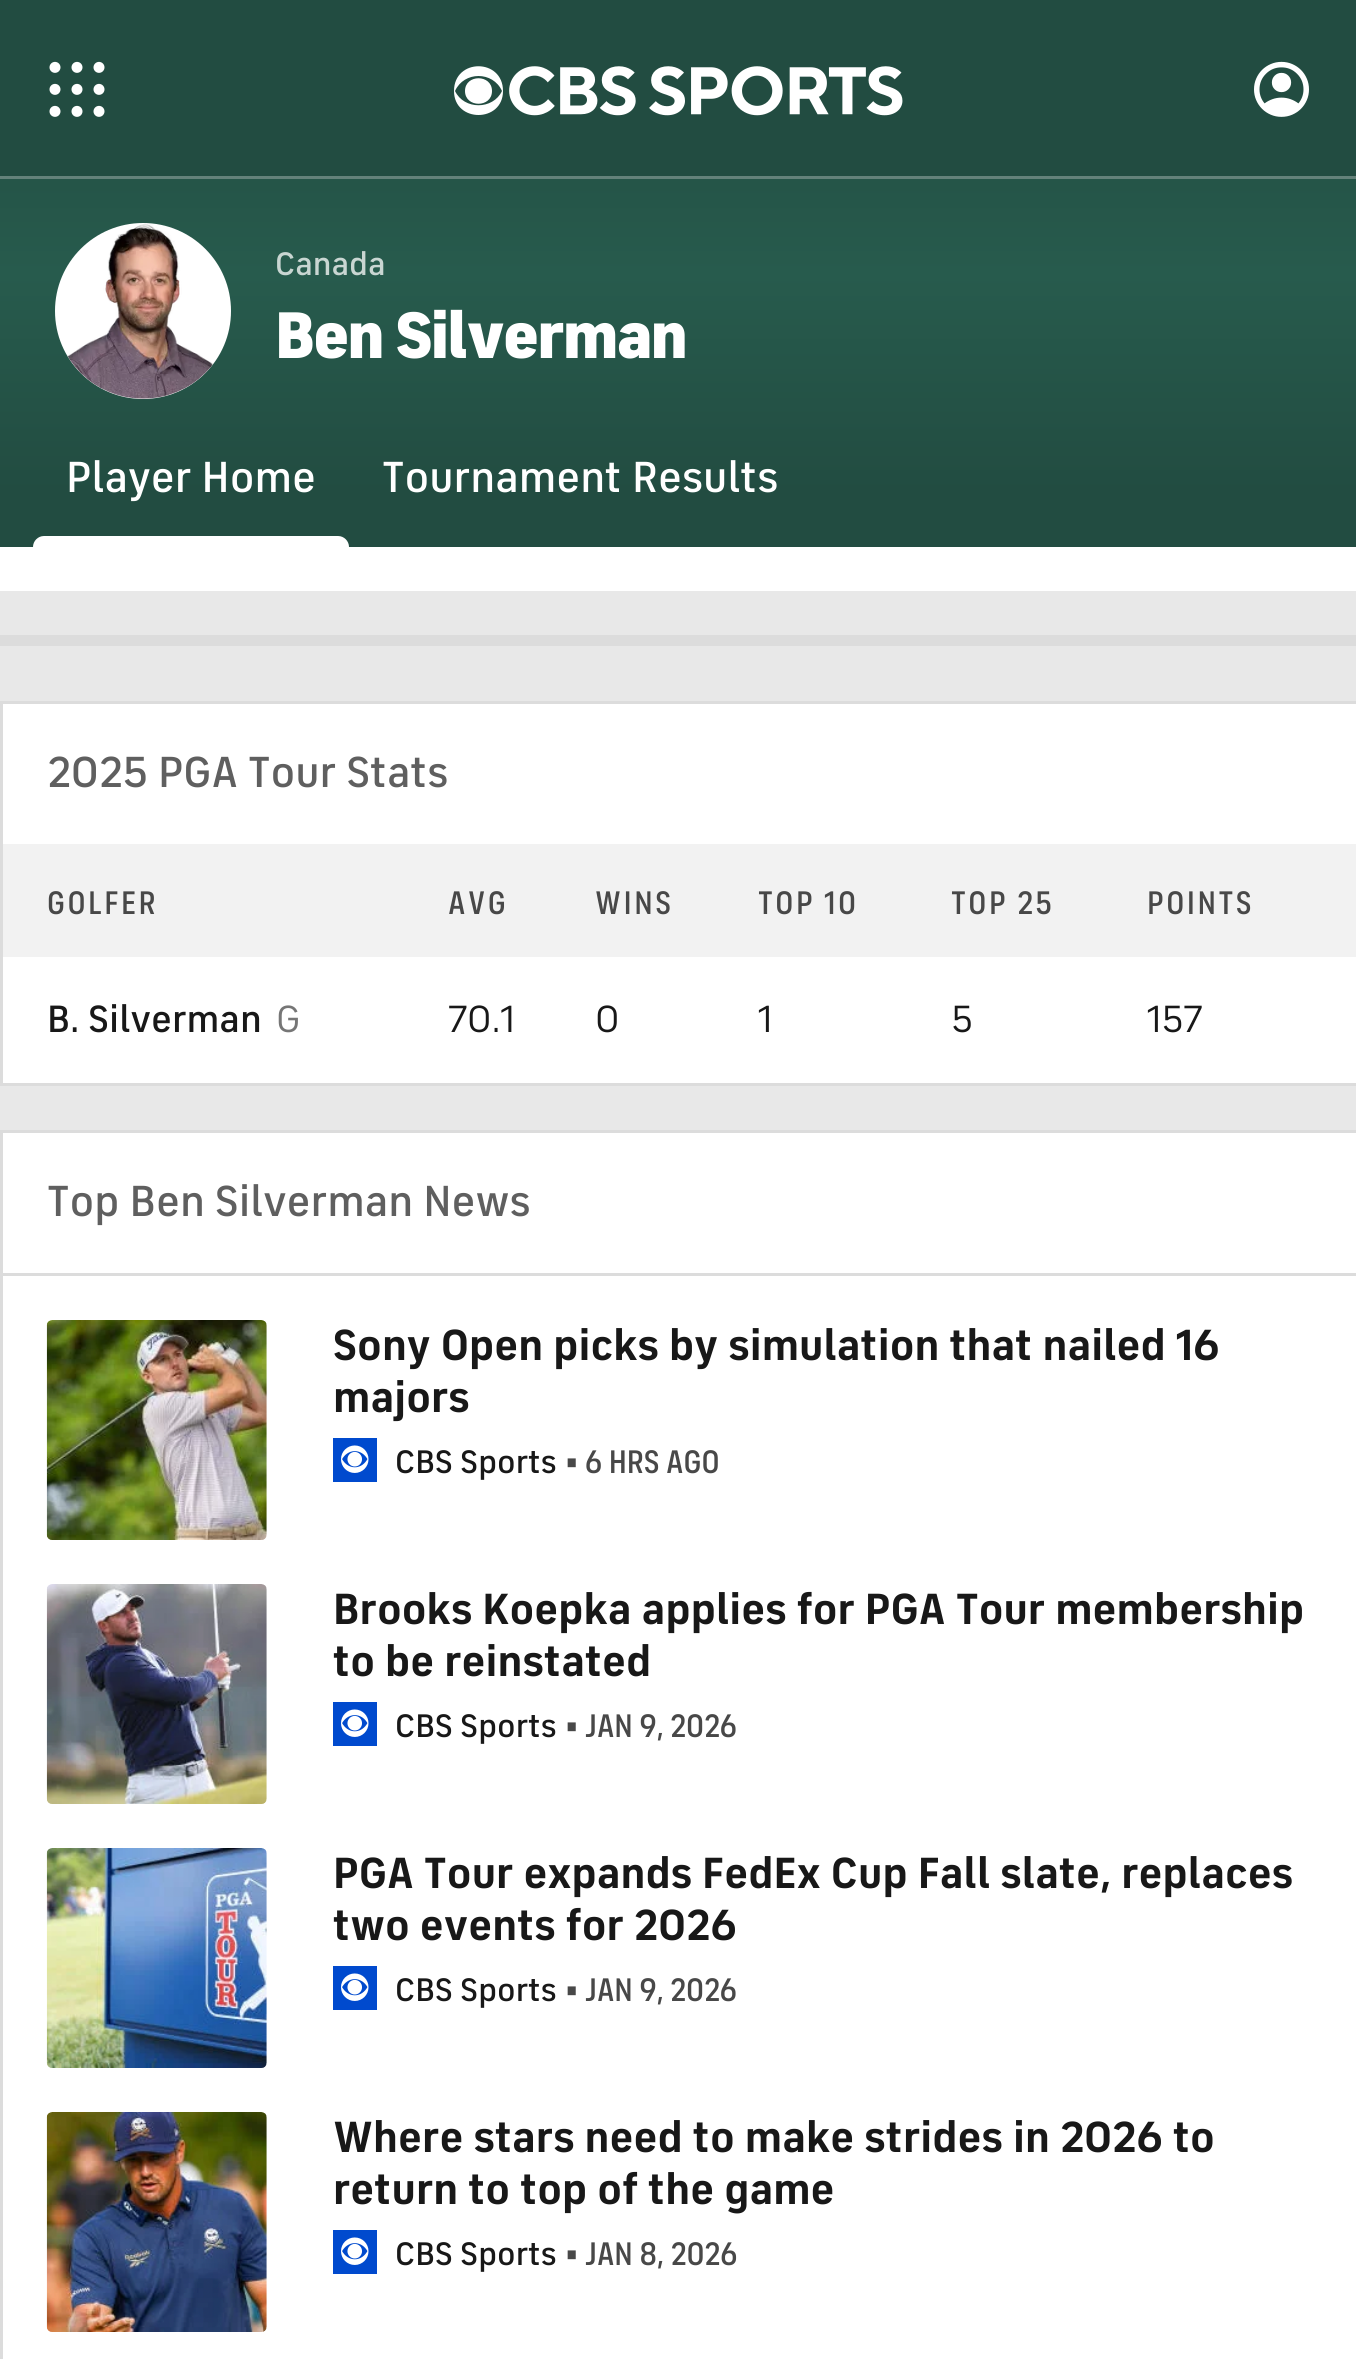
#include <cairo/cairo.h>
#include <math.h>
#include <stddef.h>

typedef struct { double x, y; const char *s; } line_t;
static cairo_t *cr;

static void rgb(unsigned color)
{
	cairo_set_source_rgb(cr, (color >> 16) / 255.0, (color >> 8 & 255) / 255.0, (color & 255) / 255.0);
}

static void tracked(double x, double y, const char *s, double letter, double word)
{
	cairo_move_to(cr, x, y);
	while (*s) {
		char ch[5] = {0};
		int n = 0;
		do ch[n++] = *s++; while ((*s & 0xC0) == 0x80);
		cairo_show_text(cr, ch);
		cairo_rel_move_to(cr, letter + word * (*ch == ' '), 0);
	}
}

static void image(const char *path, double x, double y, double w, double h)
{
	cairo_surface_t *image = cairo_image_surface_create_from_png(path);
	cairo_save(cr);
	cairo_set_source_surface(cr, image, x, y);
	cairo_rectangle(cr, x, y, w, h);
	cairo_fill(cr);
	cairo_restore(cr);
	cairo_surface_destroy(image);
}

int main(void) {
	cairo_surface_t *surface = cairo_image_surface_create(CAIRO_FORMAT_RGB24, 1356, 2359);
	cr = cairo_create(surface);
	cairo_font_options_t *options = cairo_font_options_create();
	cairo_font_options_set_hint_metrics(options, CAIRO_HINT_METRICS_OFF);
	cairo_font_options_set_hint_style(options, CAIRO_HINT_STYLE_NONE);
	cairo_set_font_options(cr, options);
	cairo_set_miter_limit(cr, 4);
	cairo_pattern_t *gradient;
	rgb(0xffffff);
	cairo_paint(cr);
	gradient = cairo_pattern_create_linear(679, 0, 679, 547);
	cairo_pattern_add_color_stop_rgba(gradient, 0, 0.133, 0.298, 0.255, 1);
	cairo_pattern_add_color_stop_rgba(gradient, 0.1, 0.133, 0.298, 0.255, 1);
	cairo_pattern_add_color_stop_rgba(gradient, 0.5, 0.153, 0.357, 0.302, 1);
	cairo_pattern_add_color_stop_rgba(gradient, 0.9, 0.133, 0.298, 0.255, 1);
	cairo_pattern_add_color_stop_rgba(gradient, 1, 0.133, 0.298, 0.255, 1);
	cairo_set_source(cr, gradient);
	cairo_pattern_destroy(gradient);
	cairo_rectangle(cr, 0, 179, 1356, 368);
	cairo_fill(cr);
	rgb(0x224c41);
	cairo_rectangle(cr, 0, 0, 1356, 176);
	cairo_fill(cr);
	rgb(0x64827a);
	cairo_rectangle(cr, 0, 176, 1356, 3);
	cairo_fill(cr);
	image("img/1.png", 49, 61, 56, 56);
	rgb(0xffffff);
	cairo_new_path(cr);
	cairo_move_to(cr, 503, 91);
	cairo_curve_to(cr, 503, 123, 454, 123, 454, 91);
	cairo_curve_to(cr, 454, 58, 503, 58, 503, 91);
	cairo_close_path(cr);
	cairo_move_to(cr, 502, 91);
	cairo_curve_to(cr, 493, 71, 464, 71, 455, 91);
	cairo_curve_to(cr, 464, 110, 493, 110, 502, 91);
	cairo_close_path(cr);
	cairo_move_to(cr, 492, 91);
	cairo_curve_to(cr, 492, 108, 465, 108, 465, 91);
	cairo_curve_to(cr, 465, 74, 492, 74, 492, 91);
	cairo_close_path(cr);
	cairo_fill(cr);
	image("img/2.png", 509, 66, 394, 50);
	image("img/3.png", 1254, 61, 55, 56);
	cairo_arc(cr, 143, 311, 88, 0, 2 * M_PI);
	cairo_fill(cr);
	image("img/4.png", 67, 224, 146, 175);
	cairo_new_path(cr);
	cairo_move_to(cr, 44, 536);
	cairo_line_to(cr, 338, 536);
	cairo_curve_to(cr, 344, 536, 349, 541, 349, 547);
	cairo_line_to(cr, 33, 547);
	cairo_curve_to(cr, 33, 541, 38, 536, 44, 536);
	cairo_close_path(cr);
	cairo_fill(cr);
	rgb(0xe8e8e8);
	cairo_rectangle(cr, 0, 591, 1356, 539);
	cairo_fill(cr);
	cairo_rectangle(cr, 1.5, 636.5, 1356, 8);
	rgb(0xdcdcdc);
	cairo_set_line_width(cr, 3);
	cairo_stroke(cr);
	cairo_rectangle(cr, 3, 638, 1353, 5);
	cairo_fill(cr);
	rgb(0xffffff);
	cairo_rectangle(cr, 1.5, 702.5, 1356, 382);
	cairo_fill_preserve(cr);
	rgb(0xdcdcdc);
	cairo_stroke(cr);
	rgb(0xf2f2f2);
	cairo_rectangle(cr, 3, 844, 1353, 113);
	cairo_fill(cr);
	cairo_rectangle(cr, 1.5, 1131.5, 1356, 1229);
	rgb(0xdcdcdc);
	cairo_stroke(cr);
	cairo_rectangle(cr, 3, 1273, 1353, 3);
	cairo_fill(cr);
	image("img/5.png", 46, 1320, 221, 220);
	rgb(0x004ace);
	cairo_rectangle(cr, 333, 1438, 44, 44);
	cairo_fill(cr);
	image("img/6.png", 341, 1445, 28, 28);
	image("img/7.png", 46, 1584, 221, 220);
	cairo_rectangle(cr, 333, 1702, 44, 44);
	cairo_fill(cr);
	image("img/6.png", 341, 1709, 28, 28);
	image("img/8.png", 46, 1848, 221, 220);
	cairo_rectangle(cr, 333, 1966, 44, 44);
	cairo_fill(cr);
	image("img/6.png", 341, 1973, 28, 28);
	image("img/9.png", 46, 2112, 221, 220);
	cairo_rectangle(cr, 333, 2230, 44, 44);
	cairo_fill(cr);
	image("img/6.png", 341, 2237, 28, 28);
	cairo_select_font_face(cr, "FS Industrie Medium", CAIRO_FONT_SLANT_NORMAL, CAIRO_FONT_WEIGHT_NORMAL);
	cairo_set_font_size(cr, 33);
	rgb(0xc9d6d2);
	cairo_move_to(cr, 275, 275);
	cairo_show_text(cr, "Canada");
	cairo_select_font_face(cr, "FS Industrie Black", CAIRO_FONT_SLANT_NORMAL, CAIRO_FONT_WEIGHT_NORMAL);
	cairo_set_font_size(cr, 66);
	rgb(0xffffff);
	tracked(275, 358, "Ben Silverman", -2, 0);
	cairo_select_font_face(cr, "FS Industrie Medium", CAIRO_FONT_SLANT_NORMAL, CAIRO_FONT_WEIGHT_NORMAL);
	cairo_set_font_size(cr, 44);
	cairo_move_to(cr, 66, 492);
	cairo_show_text(cr, "Player Home");
	cairo_move_to(cr, 382, 492);
	cairo_show_text(cr, "Tournament Results");
	rgb(0x5f5f5f);
	cairo_move_to(cr, 47, 787);
	cairo_show_text(cr, "2025 PGA Tour Stats");
	cairo_select_font_face(cr, "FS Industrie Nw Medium", CAIRO_FONT_SLANT_NORMAL, CAIRO_FONT_WEIGHT_NORMAL);
	cairo_set_font_size(cr, 33);
	rgb(0x484848);
	{
		static const line_t items[] = {
			{47, 914, "GOLFER"},
			{448, 914, "AVG"},
			{595, 914, "WINS"},
			{758, 914, "TOP 10"},
			{951, 914, "TOP 25"},
			{1147, 914, "POINTS"},
		};
		for (size_t i = 0; i < sizeof items / sizeof *items; i++) {
			tracked(items[i].x, items[i].y, items[i].s, 2.5, 0);
		}
	}
	cairo_select_font_face(cr, "FS Industrie Medium", CAIRO_FONT_SLANT_NORMAL, CAIRO_FONT_WEIGHT_NORMAL);
	cairo_set_font_size(cr, 38.5);
	rgb(0x181818);
	cairo_move_to(cr, 47, 1032);
	cairo_show_text(cr, "B. Silverman");
	cairo_select_font_face(cr, "FS Industrie", CAIRO_FONT_SLANT_NORMAL, CAIRO_FONT_WEIGHT_NORMAL);
	rgb(0x767676);
	cairo_move_to(cr, 276, 1032);
	cairo_show_text(cr, "G");
	rgb(0x181818);
	{
		static const line_t items[] = {
			{448, 1032, "70.1"},
			{595, 1032, "0"},
			{758, 1032, "1"},
			{951, 1032, "5"},
			{1147, 1032, "157"},
		};
		for (size_t i = 0; i < sizeof items / sizeof *items; i++) {
			cairo_move_to(cr, items[i].x, items[i].y);
			cairo_show_text(cr, items[i].s);
		}
	}
	cairo_select_font_face(cr, "FS Industrie Medium", CAIRO_FONT_SLANT_NORMAL, CAIRO_FONT_WEIGHT_NORMAL);
	cairo_set_font_size(cr, 44);
	rgb(0x5f5f5f);
	cairo_move_to(cr, 47, 1216);
	cairo_show_text(cr, "Top Ben Silverman News");
	cairo_select_font_face(cr, "FS Industrie", CAIRO_FONT_SLANT_NORMAL, CAIRO_FONT_WEIGHT_BOLD);
	rgb(0x181818);
	cairo_move_to(cr, 333, 1360);
	cairo_show_text(cr, "Sony Open picks by simulation that nailed 16");
	cairo_move_to(cr, 333, 1412);
	cairo_show_text(cr, "majors");
	cairo_select_font_face(cr, "FS Industrie Medium", CAIRO_FONT_SLANT_NORMAL, CAIRO_FONT_WEIGHT_NORMAL);
	cairo_set_font_size(cr, 33);
	cairo_move_to(cr, 395, 1473);
	cairo_show_text(cr, "CBS Sports");
	cairo_select_font_face(cr, "FS Industrie Nw Medium", CAIRO_FONT_SLANT_NORMAL, CAIRO_FONT_WEIGHT_NORMAL);
	cairo_set_font_size(cr, 38.5);
	rgb(0x484848);
	cairo_move_to(cr, 565, 1473);
	cairo_show_text(cr, "•");
	cairo_set_font_size(cr, 33);
	cairo_move_to(cr, 585, 1473);
	cairo_show_text(cr, "6 HRS AGO");
	cairo_select_font_face(cr, "FS Industrie", CAIRO_FONT_SLANT_NORMAL, CAIRO_FONT_WEIGHT_BOLD);
	cairo_set_font_size(cr, 44);
	rgb(0x181818);
	cairo_move_to(cr, 333, 1624);
	cairo_show_text(cr, "Brooks Koepka applies for PGA Tour membership");
	cairo_move_to(cr, 333, 1676);
	cairo_show_text(cr, "to be reinstated");
	cairo_select_font_face(cr, "FS Industrie Medium", CAIRO_FONT_SLANT_NORMAL, CAIRO_FONT_WEIGHT_NORMAL);
	cairo_set_font_size(cr, 33);
	cairo_move_to(cr, 395, 1737);
	cairo_show_text(cr, "CBS Sports");
	cairo_select_font_face(cr, "FS Industrie Nw Medium", CAIRO_FONT_SLANT_NORMAL, CAIRO_FONT_WEIGHT_NORMAL);
	cairo_set_font_size(cr, 38.5);
	rgb(0x484848);
	cairo_move_to(cr, 565, 1737);
	cairo_show_text(cr, "•");
	cairo_set_font_size(cr, 33);
	cairo_move_to(cr, 585, 1737);
	cairo_show_text(cr, "JAN 9, 2026");
	cairo_select_font_face(cr, "FS Industrie", CAIRO_FONT_SLANT_NORMAL, CAIRO_FONT_WEIGHT_BOLD);
	cairo_set_font_size(cr, 44);
	rgb(0x181818);
	cairo_move_to(cr, 333, 1888);
	cairo_show_text(cr, "PGA Tour expands FedEx Cup Fall slate, replaces");
	cairo_move_to(cr, 333, 1940);
	cairo_show_text(cr, "two events for 2026");
	cairo_select_font_face(cr, "FS Industrie Medium", CAIRO_FONT_SLANT_NORMAL, CAIRO_FONT_WEIGHT_NORMAL);
	cairo_set_font_size(cr, 33);
	cairo_move_to(cr, 395, 2001);
	cairo_show_text(cr, "CBS Sports");
	cairo_select_font_face(cr, "FS Industrie Nw Medium", CAIRO_FONT_SLANT_NORMAL, CAIRO_FONT_WEIGHT_NORMAL);
	cairo_set_font_size(cr, 38.5);
	rgb(0x484848);
	cairo_move_to(cr, 565, 2001);
	cairo_show_text(cr, "•");
	cairo_set_font_size(cr, 33);
	cairo_move_to(cr, 585, 2001);
	cairo_show_text(cr, "JAN 9, 2026");
	cairo_select_font_face(cr, "FS Industrie", CAIRO_FONT_SLANT_NORMAL, CAIRO_FONT_WEIGHT_BOLD);
	cairo_set_font_size(cr, 44);
	rgb(0x181818);
	cairo_move_to(cr, 333, 2152);
	cairo_show_text(cr, "Where stars need to make strides in 2026 to");
	cairo_move_to(cr, 333, 2204);
	cairo_show_text(cr, "return to top of the game");
	cairo_select_font_face(cr, "FS Industrie Medium", CAIRO_FONT_SLANT_NORMAL, CAIRO_FONT_WEIGHT_NORMAL);
	cairo_set_font_size(cr, 33);
	cairo_move_to(cr, 395, 2265);
	cairo_show_text(cr, "CBS Sports");
	cairo_select_font_face(cr, "FS Industrie Nw Medium", CAIRO_FONT_SLANT_NORMAL, CAIRO_FONT_WEIGHT_NORMAL);
	cairo_set_font_size(cr, 38.5);
	rgb(0x484848);
	cairo_move_to(cr, 565, 2265);
	cairo_show_text(cr, "•");
	cairo_set_font_size(cr, 33);
	cairo_move_to(cr, 585, 2265);
	cairo_show_text(cr, "JAN 8, 2026");
	cairo_surface_write_to_png(surface, "page.png");
	cairo_font_options_destroy(options);
	cairo_destroy(cr);
	cairo_surface_destroy(surface);
	return 0;
}
